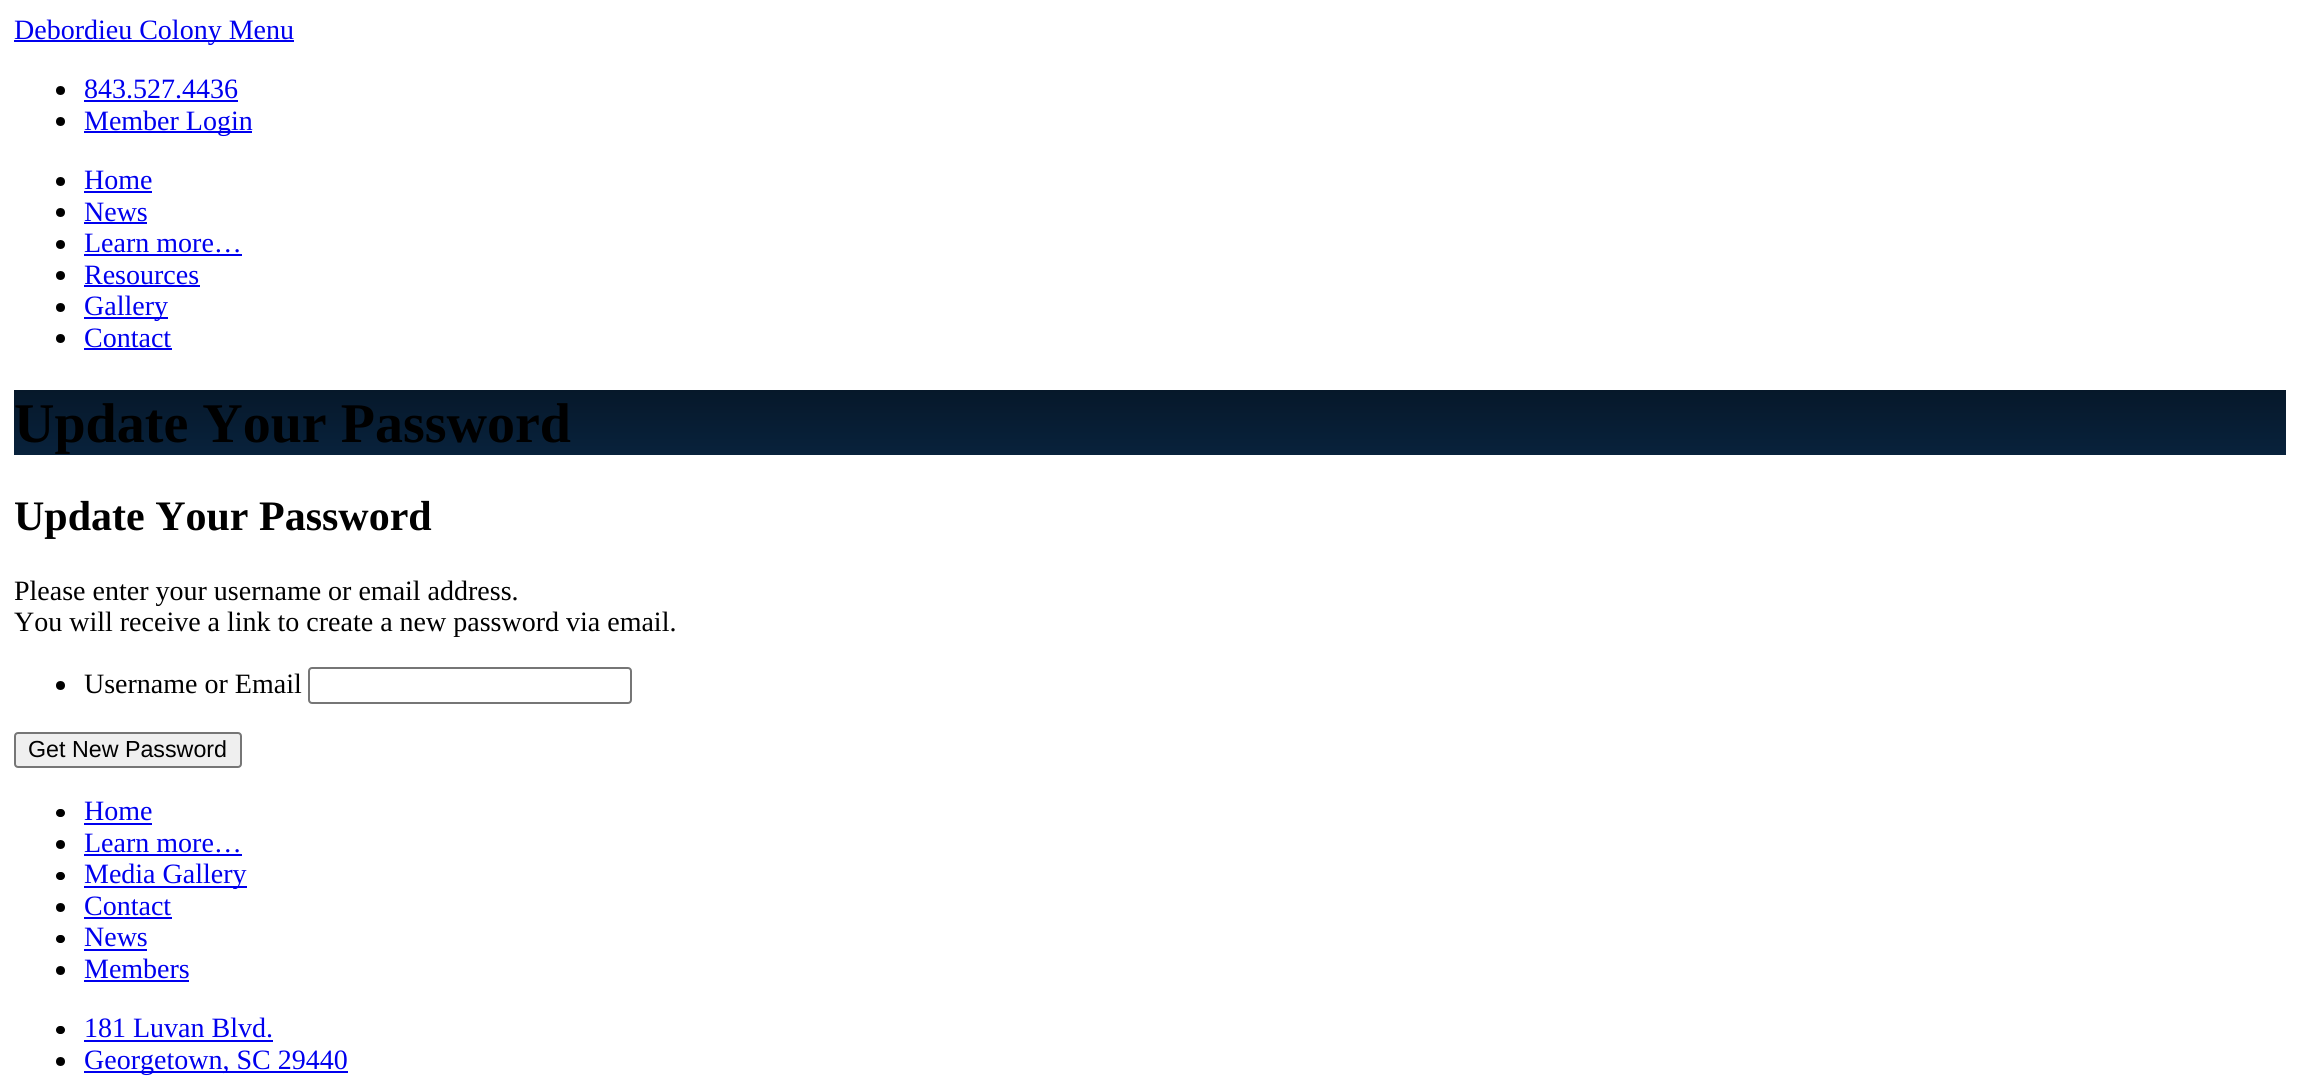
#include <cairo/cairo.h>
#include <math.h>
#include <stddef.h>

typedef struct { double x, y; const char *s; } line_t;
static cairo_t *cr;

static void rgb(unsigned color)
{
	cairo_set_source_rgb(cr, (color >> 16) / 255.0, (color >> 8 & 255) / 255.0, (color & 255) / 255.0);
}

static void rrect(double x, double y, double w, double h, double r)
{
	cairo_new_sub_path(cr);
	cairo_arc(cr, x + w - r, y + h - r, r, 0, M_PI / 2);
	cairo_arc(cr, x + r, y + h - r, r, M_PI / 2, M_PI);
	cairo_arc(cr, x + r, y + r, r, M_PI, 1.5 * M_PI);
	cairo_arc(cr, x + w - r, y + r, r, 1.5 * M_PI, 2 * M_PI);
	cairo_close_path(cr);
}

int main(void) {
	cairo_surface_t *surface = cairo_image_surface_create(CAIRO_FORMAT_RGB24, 2298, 1080);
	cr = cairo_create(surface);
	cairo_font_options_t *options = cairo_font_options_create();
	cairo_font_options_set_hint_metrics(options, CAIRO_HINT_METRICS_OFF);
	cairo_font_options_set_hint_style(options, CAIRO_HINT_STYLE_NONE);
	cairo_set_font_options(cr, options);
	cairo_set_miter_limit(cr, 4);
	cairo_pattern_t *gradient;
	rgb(0xffffff);
	cairo_paint(cr);
	rgb(0x0000ee);
	cairo_rectangle(cr, 14, 40, 280, 2);
	cairo_fill(cr);
	rgb(0x000000);
	cairo_arc(cr, 60.5, 90.5, 4.5, 0, 2 * M_PI);
	cairo_fill(cr);
	rgb(0x0000ee);
	cairo_rectangle(cr, 84, 100, 154, 2);
	cairo_fill(cr);
	rgb(0x000000);
	cairo_arc(cr, 60.5, 121.5, 4.5, 0, 2 * M_PI);
	cairo_fill(cr);
	rgb(0x0000ee);
	cairo_rectangle(cr, 84, 131, 168, 2);
	cairo_fill(cr);
	rgb(0x000000);
	cairo_arc(cr, 60.5, 181.5, 4.5, 0, 2 * M_PI);
	cairo_fill(cr);
	rgb(0x0000ee);
	cairo_rectangle(cr, 84, 191, 68, 2);
	cairo_fill(cr);
	rgb(0x000000);
	cairo_arc(cr, 60.5, 212.5, 4.5, 0, 2 * M_PI);
	cairo_fill(cr);
	rgb(0x0000ee);
	cairo_rectangle(cr, 84, 222, 63, 2);
	cairo_fill(cr);
	rgb(0x000000);
	cairo_arc(cr, 60.5, 244.5, 4.5, 0, 2 * M_PI);
	cairo_fill(cr);
	rgb(0x0000ee);
	cairo_rectangle(cr, 84, 254, 158, 2);
	cairo_fill(cr);
	rgb(0x000000);
	cairo_arc(cr, 60.5, 275.5, 4.5, 0, 2 * M_PI);
	cairo_fill(cr);
	rgb(0x0000ee);
	cairo_rectangle(cr, 84, 285, 116, 2);
	cairo_fill(cr);
	rgb(0x000000);
	cairo_arc(cr, 60.5, 307.5, 4.5, 0, 2 * M_PI);
	cairo_fill(cr);
	rgb(0x0000ee);
	cairo_rectangle(cr, 84, 317, 84, 2);
	cairo_fill(cr);
	rgb(0x000000);
	cairo_arc(cr, 60.5, 338.5, 4.5, 0, 2 * M_PI);
	cairo_fill(cr);
	rgb(0x0000ee);
	cairo_rectangle(cr, 84, 348, 88, 2);
	cairo_fill(cr);
	gradient = cairo_pattern_create_linear(1150, 390, 1150, 455);
	cairo_pattern_add_color_stop_rgba(gradient, 0, 0.024, 0.094, 0.165, 1);
	cairo_pattern_add_color_stop_rgba(gradient, 1, 0.031, 0.133, 0.235, 1);
	cairo_set_source(cr, gradient);
	cairo_pattern_destroy(gradient);
	cairo_rectangle(cr, 14, 390, 2272, 65);
	cairo_fill(cr);
	rgb(0x000000);
	cairo_arc(cr, 60.5, 685.5, 4.5, 0, 2 * M_PI);
	cairo_fill(cr);
	rrect(309, 668, 322, 35, 3);
	rgb(0x767676);
	cairo_stroke(cr);
	rgb(0xefefef);
	rrect(15, 733, 226, 34, 3);
	cairo_fill_preserve(cr);
	rgb(0x767676);
	cairo_stroke(cr);
	rgb(0x000000);
	rrect(56, 809, 9, 8, 4);
	cairo_fill(cr);
	rgb(0x0000ee);
	cairo_rectangle(cr, 84, 823, 68, 2);
	cairo_fill(cr);
	rgb(0x000000);
	cairo_arc(cr, 60.5, 844.5, 4.5, 0, 2 * M_PI);
	cairo_fill(cr);
	rgb(0x0000ee);
	cairo_rectangle(cr, 84, 854, 158, 2);
	cairo_fill(cr);
	rgb(0x000000);
	rrect(56, 872, 9, 8, 4);
	cairo_fill(cr);
	rgb(0x0000ee);
	cairo_rectangle(cr, 84, 886, 163, 2);
	cairo_fill(cr);
	rgb(0x000000);
	cairo_arc(cr, 60.5, 907.5, 4.5, 0, 2 * M_PI);
	cairo_fill(cr);
	rgb(0x0000ee);
	cairo_rectangle(cr, 84, 917, 88, 2);
	cairo_fill(cr);
	rgb(0x000000);
	rrect(56, 935, 9, 8, 4);
	cairo_fill(cr);
	rgb(0x0000ee);
	cairo_rectangle(cr, 84, 949, 63, 2);
	cairo_fill(cr);
	rgb(0x000000);
	cairo_arc(cr, 60.5, 970.5, 4.5, 0, 2 * M_PI);
	cairo_fill(cr);
	rgb(0x0000ee);
	cairo_rectangle(cr, 84, 980, 105, 2);
	cairo_fill(cr);
	rgb(0x000000);
	rrect(56, 1026, 9, 8, 4);
	cairo_fill(cr);
	rgb(0x0000ee);
	cairo_rectangle(cr, 84, 1040, 189, 2);
	cairo_fill(cr);
	rgb(0x000000);
	cairo_arc(cr, 60.5, 1061.5, 4.5, 0, 2 * M_PI);
	cairo_fill(cr);
	rgb(0x0000ee);
	cairo_rectangle(cr, 84, 1071, 264, 2);
	cairo_fill(cr);
	cairo_select_font_face(cr, "Liberation Serif", CAIRO_FONT_SLANT_NORMAL, CAIRO_FONT_WEIGHT_NORMAL);
	cairo_set_font_size(cr, 28);
	{
		static const line_t items[] = {
			{14, 39, "Debordieu Colony Menu"},
			{84, 98, "843.527.4436"},
			{84, 130, "Member Login"},
			{84, 189, "Home"},
			{84, 221, "News"},
			{84, 252, "Learn more…"},
			{84, 284, "Resources"},
			{84, 315, "Gallery"},
			{84, 347, "Contact"},
		};
		for (size_t i = 0; i < sizeof items / sizeof *items; i++) {
			cairo_move_to(cr, items[i].x, items[i].y);
			cairo_show_text(cr, items[i].s);
		}
	}
	cairo_select_font_face(cr, "Liberation Serif", CAIRO_FONT_SLANT_NORMAL, CAIRO_FONT_WEIGHT_BOLD);
	cairo_set_font_size(cr, 56);
	rgb(0x000000);
	cairo_move_to(cr, 14, 442);
	cairo_show_text(cr, "Update Your Password");
	cairo_set_font_size(cr, 42);
	cairo_move_to(cr, 14, 530);
	cairo_show_text(cr, "Update Your Password");
	cairo_select_font_face(cr, "Liberation Serif", CAIRO_FONT_SLANT_NORMAL, CAIRO_FONT_WEIGHT_NORMAL);
	cairo_set_font_size(cr, 28);
	{
		static const line_t items[] = {
			{14, 600, "Please enter your username or email address."},
			{14, 631, "You will receive a link to create a new password via email."},
			{84, 693, "Username or Email"},
		};
		for (size_t i = 0; i < sizeof items / sizeof *items; i++) {
			cairo_move_to(cr, items[i].x, items[i].y);
			cairo_show_text(cr, items[i].s);
		}
	}
	cairo_select_font_face(cr, "Liberation Sans", CAIRO_FONT_SLANT_NORMAL, CAIRO_FONT_WEIGHT_NORMAL);
	cairo_set_font_size(cr, 23.25);
	cairo_move_to(cr, 28, 757);
	cairo_show_text(cr, "Get New Password");
	cairo_select_font_face(cr, "Liberation Serif", CAIRO_FONT_SLANT_NORMAL, CAIRO_FONT_WEIGHT_NORMAL);
	cairo_set_font_size(cr, 28);
	rgb(0x0000ee);
	{
		static const line_t items[] = {
			{84, 820, "Home"},
			{84, 852, "Learn more…"},
			{84, 883, "Media Gallery"},
			{84, 915, "Contact"},
			{84, 946, "News"},
			{84, 978, "Members"},
			{84, 1037, "181 Luvan Blvd."},
			{84, 1069, "Georgetown, SC 29440"},
		};
		for (size_t i = 0; i < sizeof items / sizeof *items; i++) {
			cairo_move_to(cr, items[i].x, items[i].y);
			cairo_show_text(cr, items[i].s);
		}
	}
	cairo_surface_write_to_png(surface, "page.png");
	cairo_font_options_destroy(options);
	cairo_destroy(cr);
	cairo_surface_destroy(surface);
	return 0;
}
